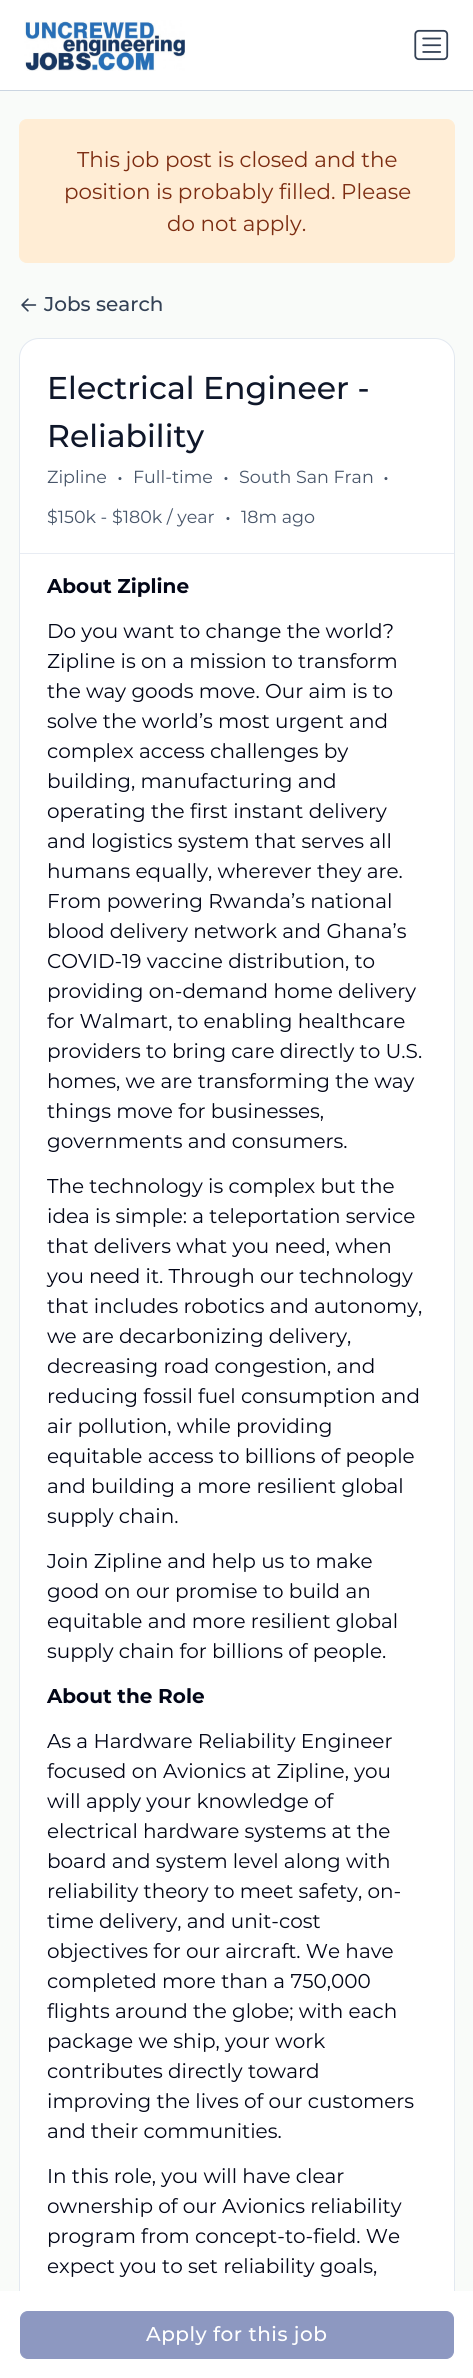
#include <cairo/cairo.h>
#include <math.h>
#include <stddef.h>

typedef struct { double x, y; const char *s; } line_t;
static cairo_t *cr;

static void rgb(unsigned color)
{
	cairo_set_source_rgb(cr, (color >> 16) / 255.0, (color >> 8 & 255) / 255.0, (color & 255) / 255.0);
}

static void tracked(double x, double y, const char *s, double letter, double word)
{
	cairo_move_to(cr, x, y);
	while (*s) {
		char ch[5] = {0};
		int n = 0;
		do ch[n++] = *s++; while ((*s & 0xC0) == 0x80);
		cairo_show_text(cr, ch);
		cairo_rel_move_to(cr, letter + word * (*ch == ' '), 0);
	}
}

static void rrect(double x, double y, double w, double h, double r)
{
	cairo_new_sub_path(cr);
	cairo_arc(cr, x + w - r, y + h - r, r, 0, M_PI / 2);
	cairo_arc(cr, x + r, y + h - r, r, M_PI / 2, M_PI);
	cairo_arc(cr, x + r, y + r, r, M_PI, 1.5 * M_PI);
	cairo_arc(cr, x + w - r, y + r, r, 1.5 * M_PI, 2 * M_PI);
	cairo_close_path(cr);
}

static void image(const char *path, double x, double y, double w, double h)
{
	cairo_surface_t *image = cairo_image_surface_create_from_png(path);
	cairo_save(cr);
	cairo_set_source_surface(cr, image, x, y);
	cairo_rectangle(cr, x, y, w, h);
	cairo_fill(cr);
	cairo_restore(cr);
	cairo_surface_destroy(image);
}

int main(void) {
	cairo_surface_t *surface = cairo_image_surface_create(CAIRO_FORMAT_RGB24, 473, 2378);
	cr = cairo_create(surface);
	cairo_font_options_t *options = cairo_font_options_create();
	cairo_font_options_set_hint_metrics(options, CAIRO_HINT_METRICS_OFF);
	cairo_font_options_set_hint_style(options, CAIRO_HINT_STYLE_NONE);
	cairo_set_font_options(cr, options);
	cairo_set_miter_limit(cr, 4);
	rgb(0xf9fbf9);
	cairo_paint(cr);
	rgb(0xffffff);
	cairo_rectangle(cr, 0, 0, 473, 90);
	cairo_fill(cr);
	rgb(0xcbd5e1);
	cairo_rectangle(cr, 0, 90, 473, 1);
	cairo_fill(cr);
	image("img/1.png", 24, 20, 161, 51);
	image("img/2.png", 414, 29, 35, 32);
	rgb(0xffedd5);
	rrect(19.5, 119.5, 435, 143, 7.5);
	cairo_fill_preserve(cr);
	cairo_set_line_width(cr, 1);
	cairo_stroke(cr);
	image("img/3.png", 21, 298, 16, 14);
	rgb(0xffffff);
	rrect(19.5, 338.5, 435, 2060, 19.5);
	cairo_fill_preserve(cr);
	rgb(0xe2e8f0);
	cairo_stroke(cr);
	rgb(0xe8ecf3);
	cairo_rectangle(cr, 20, 553, 434, 1);
	cairo_fill(cr);
	rgb(0xffffff);
	cairo_rectangle(cr, 0, 2291, 473, 87);
	cairo_fill(cr);
	rgb(0x8d98c1);
	rrect(20.5, 2311.5, 433, 47, 7.5);
	cairo_fill_preserve(cr);
	cairo_stroke(cr);
	cairo_select_font_face(cr, "Montserrat", CAIRO_FONT_SLANT_NORMAL, CAIRO_FONT_WEIGHT_NORMAL);
	cairo_set_font_size(cr, 21.4);
	rgb(0x7c2d12);
	{
		static const line_t items[] = {
			{77, 167, "This job post is closed and the"},
			{64, 199, "position is probably filled. Please"},
			{167, 231, "do not apply."},
		};
		for (size_t i = 0; i < sizeof items / sizeof *items; i++) {
			cairo_move_to(cr, items[i].x, items[i].y);
			cairo_show_text(cr, items[i].s);
		}
	}
	cairo_select_font_face(cr, "Montserrat Medium", CAIRO_FONT_SLANT_NORMAL, CAIRO_FONT_WEIGHT_NORMAL);
	cairo_set_font_size(cr, 20);
	rgb(0x334155);
	cairo_move_to(cr, 44, 311);
	cairo_show_text(cr, "Jobs search");
	cairo_set_font_size(cr, 31.5);
	rgb(0x0f172a);
	cairo_move_to(cr, 47, 399);
	cairo_show_text(cr, "Electrical Engineer -");
	cairo_move_to(cr, 47, 447);
	cairo_show_text(cr, "Reliability");
	cairo_select_font_face(cr, "Montserrat", CAIRO_FONT_SLANT_NORMAL, CAIRO_FONT_WEIGHT_NORMAL);
	cairo_set_font_size(cr, 17.5);
	rgb(0x475569);
	cairo_move_to(cr, 47, 483);
	cairo_show_text(cr, "Zipline");
	cairo_set_font_size(cr, 20);
	cairo_move_to(cr, 117, 484);
	cairo_show_text(cr, "•");
	cairo_set_font_size(cr, 17.5);
	cairo_move_to(cr, 133, 483);
	cairo_show_text(cr, "Full-time");
	cairo_set_font_size(cr, 20);
	cairo_move_to(cr, 223, 484);
	cairo_show_text(cr, "•");
	cairo_set_font_size(cr, 17.5);
	cairo_move_to(cr, 239, 483);
	cairo_show_text(cr, "South San Fran");
	cairo_set_font_size(cr, 20);
	cairo_move_to(cr, 383, 484);
	cairo_show_text(cr, "•");
	cairo_set_font_size(cr, 17.5);
	cairo_move_to(cr, 47, 523);
	cairo_show_text(cr, "$150k - $180k / year");
	cairo_set_font_size(cr, 20);
	cairo_move_to(cr, 225, 524);
	cairo_show_text(cr, "•");
	cairo_set_font_size(cr, 17.5);
	cairo_move_to(cr, 241, 523);
	cairo_show_text(cr, "18m ago");
	cairo_select_font_face(cr, "Montserrat", CAIRO_FONT_SLANT_NORMAL, CAIRO_FONT_WEIGHT_BOLD);
	cairo_set_font_size(cr, 20);
	rgb(0x020617);
	cairo_move_to(cr, 47, 593);
	cairo_show_text(cr, "About Zipline");
	cairo_select_font_face(cr, "Montserrat", CAIRO_FONT_SLANT_NORMAL, CAIRO_FONT_WEIGHT_NORMAL);
	{
		static const line_t items[] = {
			{47, 638, "Do you want to change the world?"},
			{47, 668, "Zipline is on a mission to transform"},
			{47, 698, "the way goods move. Our aim is to"},
			{47, 728, "solve the world’s most urgent and"},
			{47, 758, "complex access challenges by"},
			{47, 788, "building, manufacturing and"},
			{47, 818, "operating the first instant delivery"},
			{47, 848, "and logistics system that serves all"},
			{47, 878, "humans equally, wherever they are."},
			{47, 908, "From powering Rwanda’s national"},
			{47, 938, "blood delivery network and Ghana’s"},
			{47, 968, "COVID-19 vaccine distribution, to"},
			{47, 998, "providing on-demand home delivery"},
			{47, 1028, "for Walmart, to enabling healthcare"},
			{47, 1058, "providers to bring care directly to U.S."},
			{47, 1088, "homes, we are transforming the way"},
			{47, 1118, "things move for businesses,"},
			{47, 1148, "governments and consumers."},
			{47, 1193, "The technology is complex but the"},
			{47, 1223, "idea is simple: a teleportation service"},
			{47, 1253, "that delivers what you need, when"},
			{47, 1283, "you need it. Through our technology"},
			{47, 1313, "that includes robotics and autonomy,"},
			{47, 1343, "we are decarbonizing delivery,"},
			{47, 1373, "decreasing road congestion, and"},
			{47, 1403, "reducing fossil fuel consumption and"},
			{47, 1433, "air pollution, while providing"},
			{47, 1463, "equitable access to billions of people"},
			{47, 1493, "and building a more resilient global"},
			{47, 1523, "supply chain."},
			{47, 1568, "Join Zipline and help us to make"},
			{47, 1598, "good on our promise to build an"},
			{47, 1628, "equitable and more resilient global"},
			{47, 1658, "supply chain for billions of people."},
		};
		for (size_t i = 0; i < sizeof items / sizeof *items; i++) {
			cairo_move_to(cr, items[i].x, items[i].y);
			cairo_show_text(cr, items[i].s);
		}
	}
	cairo_select_font_face(cr, "Montserrat", CAIRO_FONT_SLANT_NORMAL, CAIRO_FONT_WEIGHT_BOLD);
	cairo_move_to(cr, 47, 1703);
	cairo_show_text(cr, "About the Role");
	cairo_select_font_face(cr, "Montserrat", CAIRO_FONT_SLANT_NORMAL, CAIRO_FONT_WEIGHT_NORMAL);
	{
		static const line_t items[] = {
			{47, 1748, "As a Hardware Reliability Engineer"},
			{47, 1778, "focused on Avionics at Zipline, you"},
			{47, 1808, "will apply your knowledge of"},
			{47, 1838, "electrical hardware systems at the"},
			{47, 1868, "board and system level along with"},
			{47, 1898, "reliability theory to meet safety, on-"},
			{47, 1928, "time delivery, and unit-cost"},
			{47, 1958, "objectives for our aircraft. We have"},
			{47, 1988, "completed more than a 750,000"},
			{47, 2018, "flights around the globe; with each"},
			{47, 2048, "package we ship, your work"},
			{47, 2078, "contributes directly toward"},
			{47, 2108, "improving the lives of our customers"},
			{47, 2138, "and their communities."},
			{47, 2183, "In this role, you will have clear"},
			{47, 2213, "ownership of our Avionics reliability"},
			{47, 2243, "program from concept-to-field. We"},
			{47, 2273, "expect you to set reliability goals,"},
		};
		for (size_t i = 0; i < sizeof items / sizeof *items; i++) {
			cairo_move_to(cr, items[i].x, items[i].y);
			cairo_show_text(cr, items[i].s);
		}
	}
	cairo_select_font_face(cr, "Montserrat Medium", CAIRO_FONT_SLANT_NORMAL, CAIRO_FONT_WEIGHT_NORMAL);
	rgb(0xffffff);
	tracked(146, 2341, "Apply for this job", 0.5, 0);
	cairo_surface_write_to_png(surface, "page.png");
	cairo_font_options_destroy(options);
	cairo_destroy(cr);
	cairo_surface_destroy(surface);
	return 0;
}
